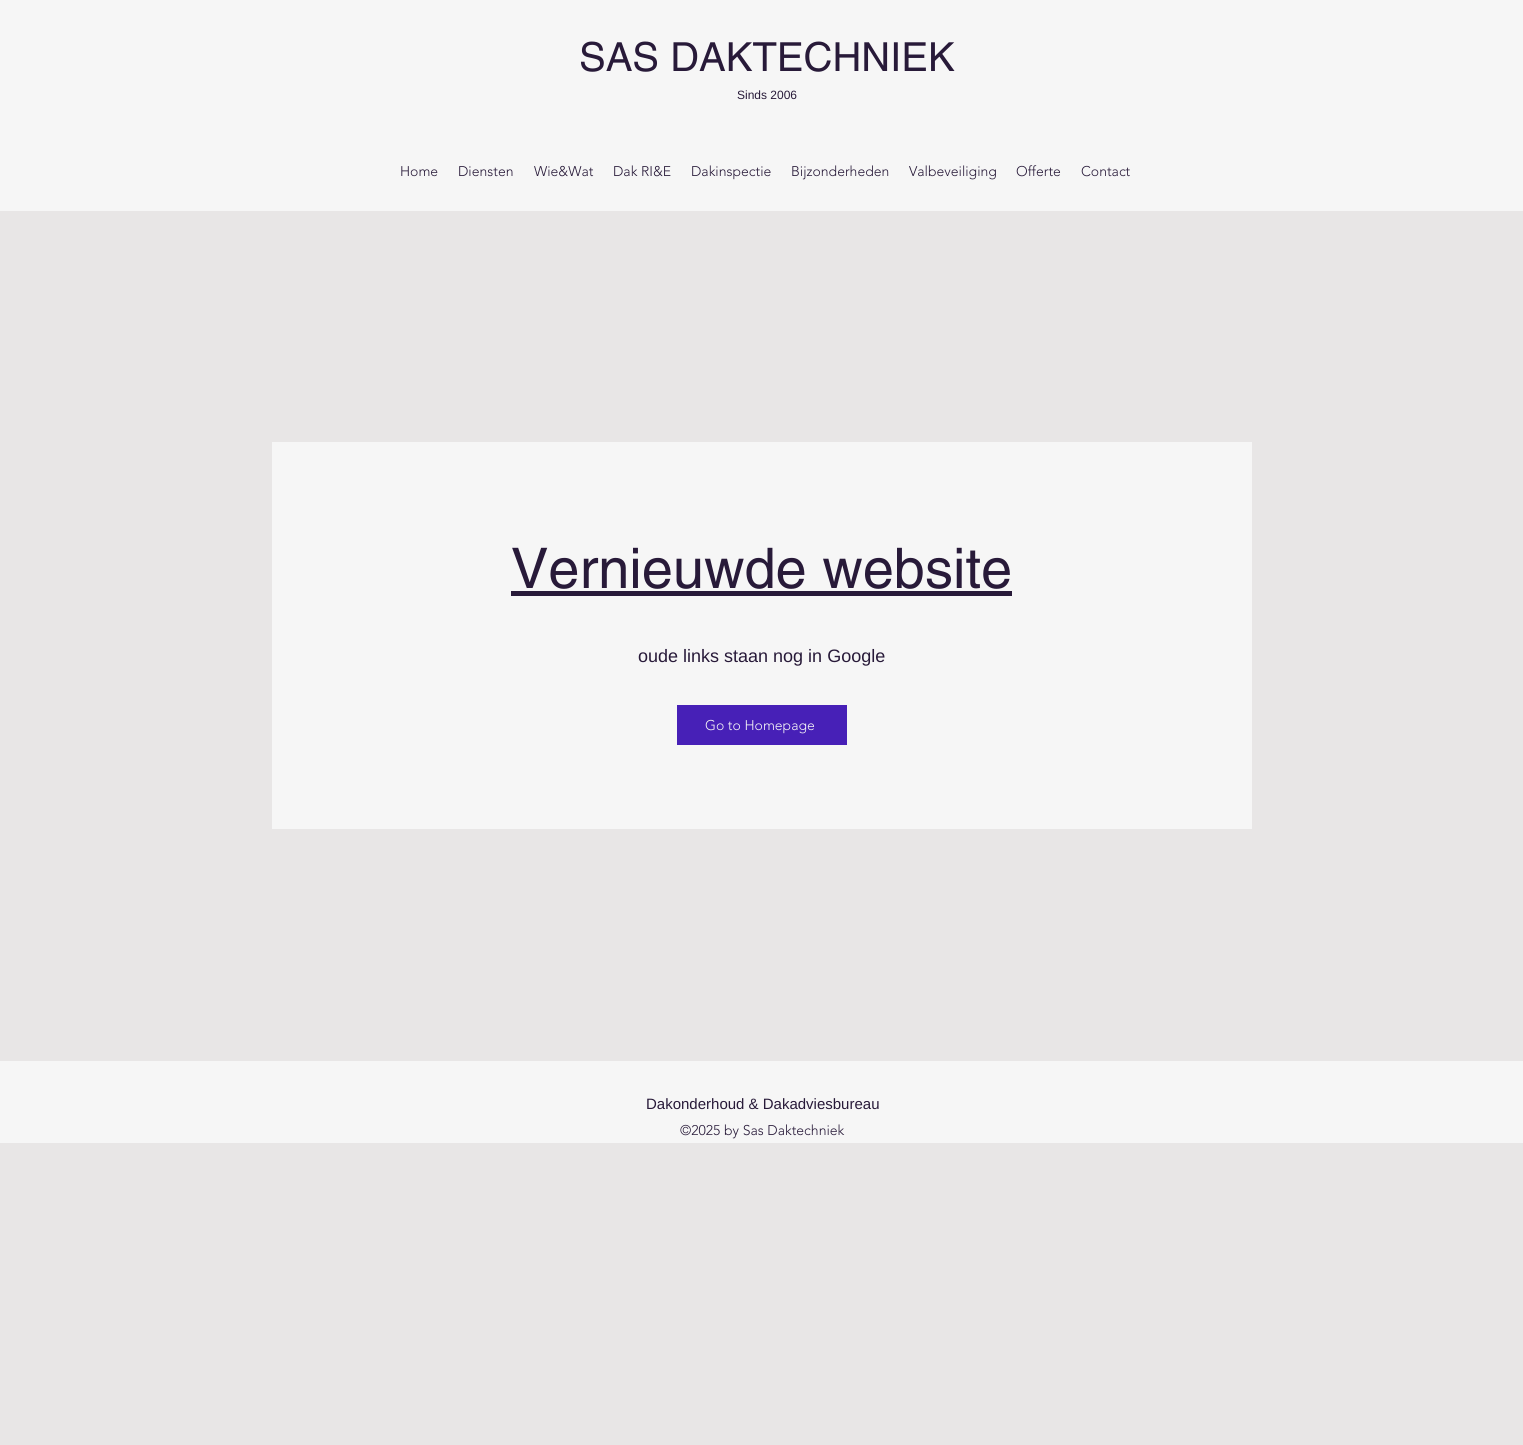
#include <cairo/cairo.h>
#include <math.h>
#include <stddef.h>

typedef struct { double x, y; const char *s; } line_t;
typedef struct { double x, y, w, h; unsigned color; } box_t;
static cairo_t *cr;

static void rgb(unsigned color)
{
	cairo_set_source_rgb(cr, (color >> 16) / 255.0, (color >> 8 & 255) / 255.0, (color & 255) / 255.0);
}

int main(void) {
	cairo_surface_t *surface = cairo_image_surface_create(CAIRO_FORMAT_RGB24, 1523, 1445);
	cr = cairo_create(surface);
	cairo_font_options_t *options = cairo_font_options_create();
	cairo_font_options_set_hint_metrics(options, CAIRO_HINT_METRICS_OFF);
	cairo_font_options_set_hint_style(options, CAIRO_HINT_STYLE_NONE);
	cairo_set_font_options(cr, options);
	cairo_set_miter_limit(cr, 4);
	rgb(0xe8e6e6);
	cairo_paint(cr);
	{
		static const box_t items[] = {
			{0, 0, 1523, 211, 0xf6f6f6},
			{272, 442, 980, 387, 0xf6f6f6},
			{511, 591, 501, 5, 0x281a39},
			{677, 705, 170, 40, 0x4720b7},
			{0, 1061, 1523, 82, 0xf6f6f6},
		};
		for (size_t i = 0; i < sizeof items / sizeof *items; i++) {
			rgb(items[i].color);
			cairo_rectangle(cr, items[i].x, items[i].y, items[i].w, items[i].h);
			cairo_fill(cr);
		}
	}
	cairo_select_font_face(cr, "helvetica", CAIRO_FONT_SLANT_NORMAL, CAIRO_FONT_WEIGHT_NORMAL);
	cairo_set_font_size(cr, 40);
	rgb(0x281a39);
	cairo_move_to(cr, 579, 71);
	cairo_show_text(cr, "SAS DAKTECHNIEK");
	cairo_select_font_face(cr, "Liberation Sans", CAIRO_FONT_SLANT_NORMAL, CAIRO_FONT_WEIGHT_NORMAL);
	cairo_set_font_size(cr, 12);
	cairo_move_to(cr, 737, 99);
	cairo_show_text(cr, "Sinds 2006");
	cairo_select_font_face(cr, "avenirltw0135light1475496 Light", CAIRO_FONT_SLANT_NORMAL, CAIRO_FONT_WEIGHT_NORMAL);
	cairo_set_font_size(cr, 14);
	{
		static const line_t items[] = {
			{400, 176, "Home"},
			{458, 176, "Diensten"},
			{534, 176, "Wie&Wat"},
			{613, 176, "Dak RI&E"},
			{691, 176, "Dakinspectie"},
			{791, 176, "Bijzonderheden"},
			{909, 176, "Valbeveiliging"},
			{1016, 176, "Offerte"},
			{1081, 176, "Contact"},
		};
		for (size_t i = 0; i < sizeof items / sizeof *items; i++) {
			cairo_move_to(cr, items[i].x, items[i].y);
			cairo_show_text(cr, items[i].s);
		}
	}
	cairo_select_font_face(cr, "helvetica", CAIRO_FONT_SLANT_NORMAL, CAIRO_FONT_WEIGHT_NORMAL);
	cairo_set_font_size(cr, 56);
	cairo_move_to(cr, 511, 588);
	cairo_show_text(cr, "Vernieuwde website");
	cairo_select_font_face(cr, "Liberation Sans", CAIRO_FONT_SLANT_NORMAL, CAIRO_FONT_WEIGHT_NORMAL);
	cairo_set_font_size(cr, 18);
	cairo_move_to(cr, 638, 662);
	cairo_show_text(cr, "oude links staan nog in Google");
	cairo_select_font_face(cr, "avenirltw0135light1475496 Light", CAIRO_FONT_SLANT_NORMAL, CAIRO_FONT_WEIGHT_NORMAL);
	cairo_set_font_size(cr, 14);
	rgb(0xf6f6f6);
	cairo_move_to(cr, 705, 730);
	cairo_show_text(cr, "Go to Homepage");
	cairo_select_font_face(cr, "Liberation Sans", CAIRO_FONT_SLANT_NORMAL, CAIRO_FONT_WEIGHT_NORMAL);
	cairo_set_font_size(cr, 15);
	rgb(0x281a39);
	cairo_move_to(cr, 646, 1109);
	cairo_show_text(cr, "Dakonderhoud & Dakadviesbureau");
	cairo_select_font_face(cr, "avenirltw0135light1475496 Light", CAIRO_FONT_SLANT_NORMAL, CAIRO_FONT_WEIGHT_NORMAL);
	cairo_set_font_size(cr, 14);
	cairo_move_to(cr, 680, 1135);
	cairo_show_text(cr, "©2025 by Sas Daktechniek");
	cairo_surface_write_to_png(surface, "page.png");
	cairo_font_options_destroy(options);
	cairo_destroy(cr);
	cairo_surface_destroy(surface);
	return 0;
}
